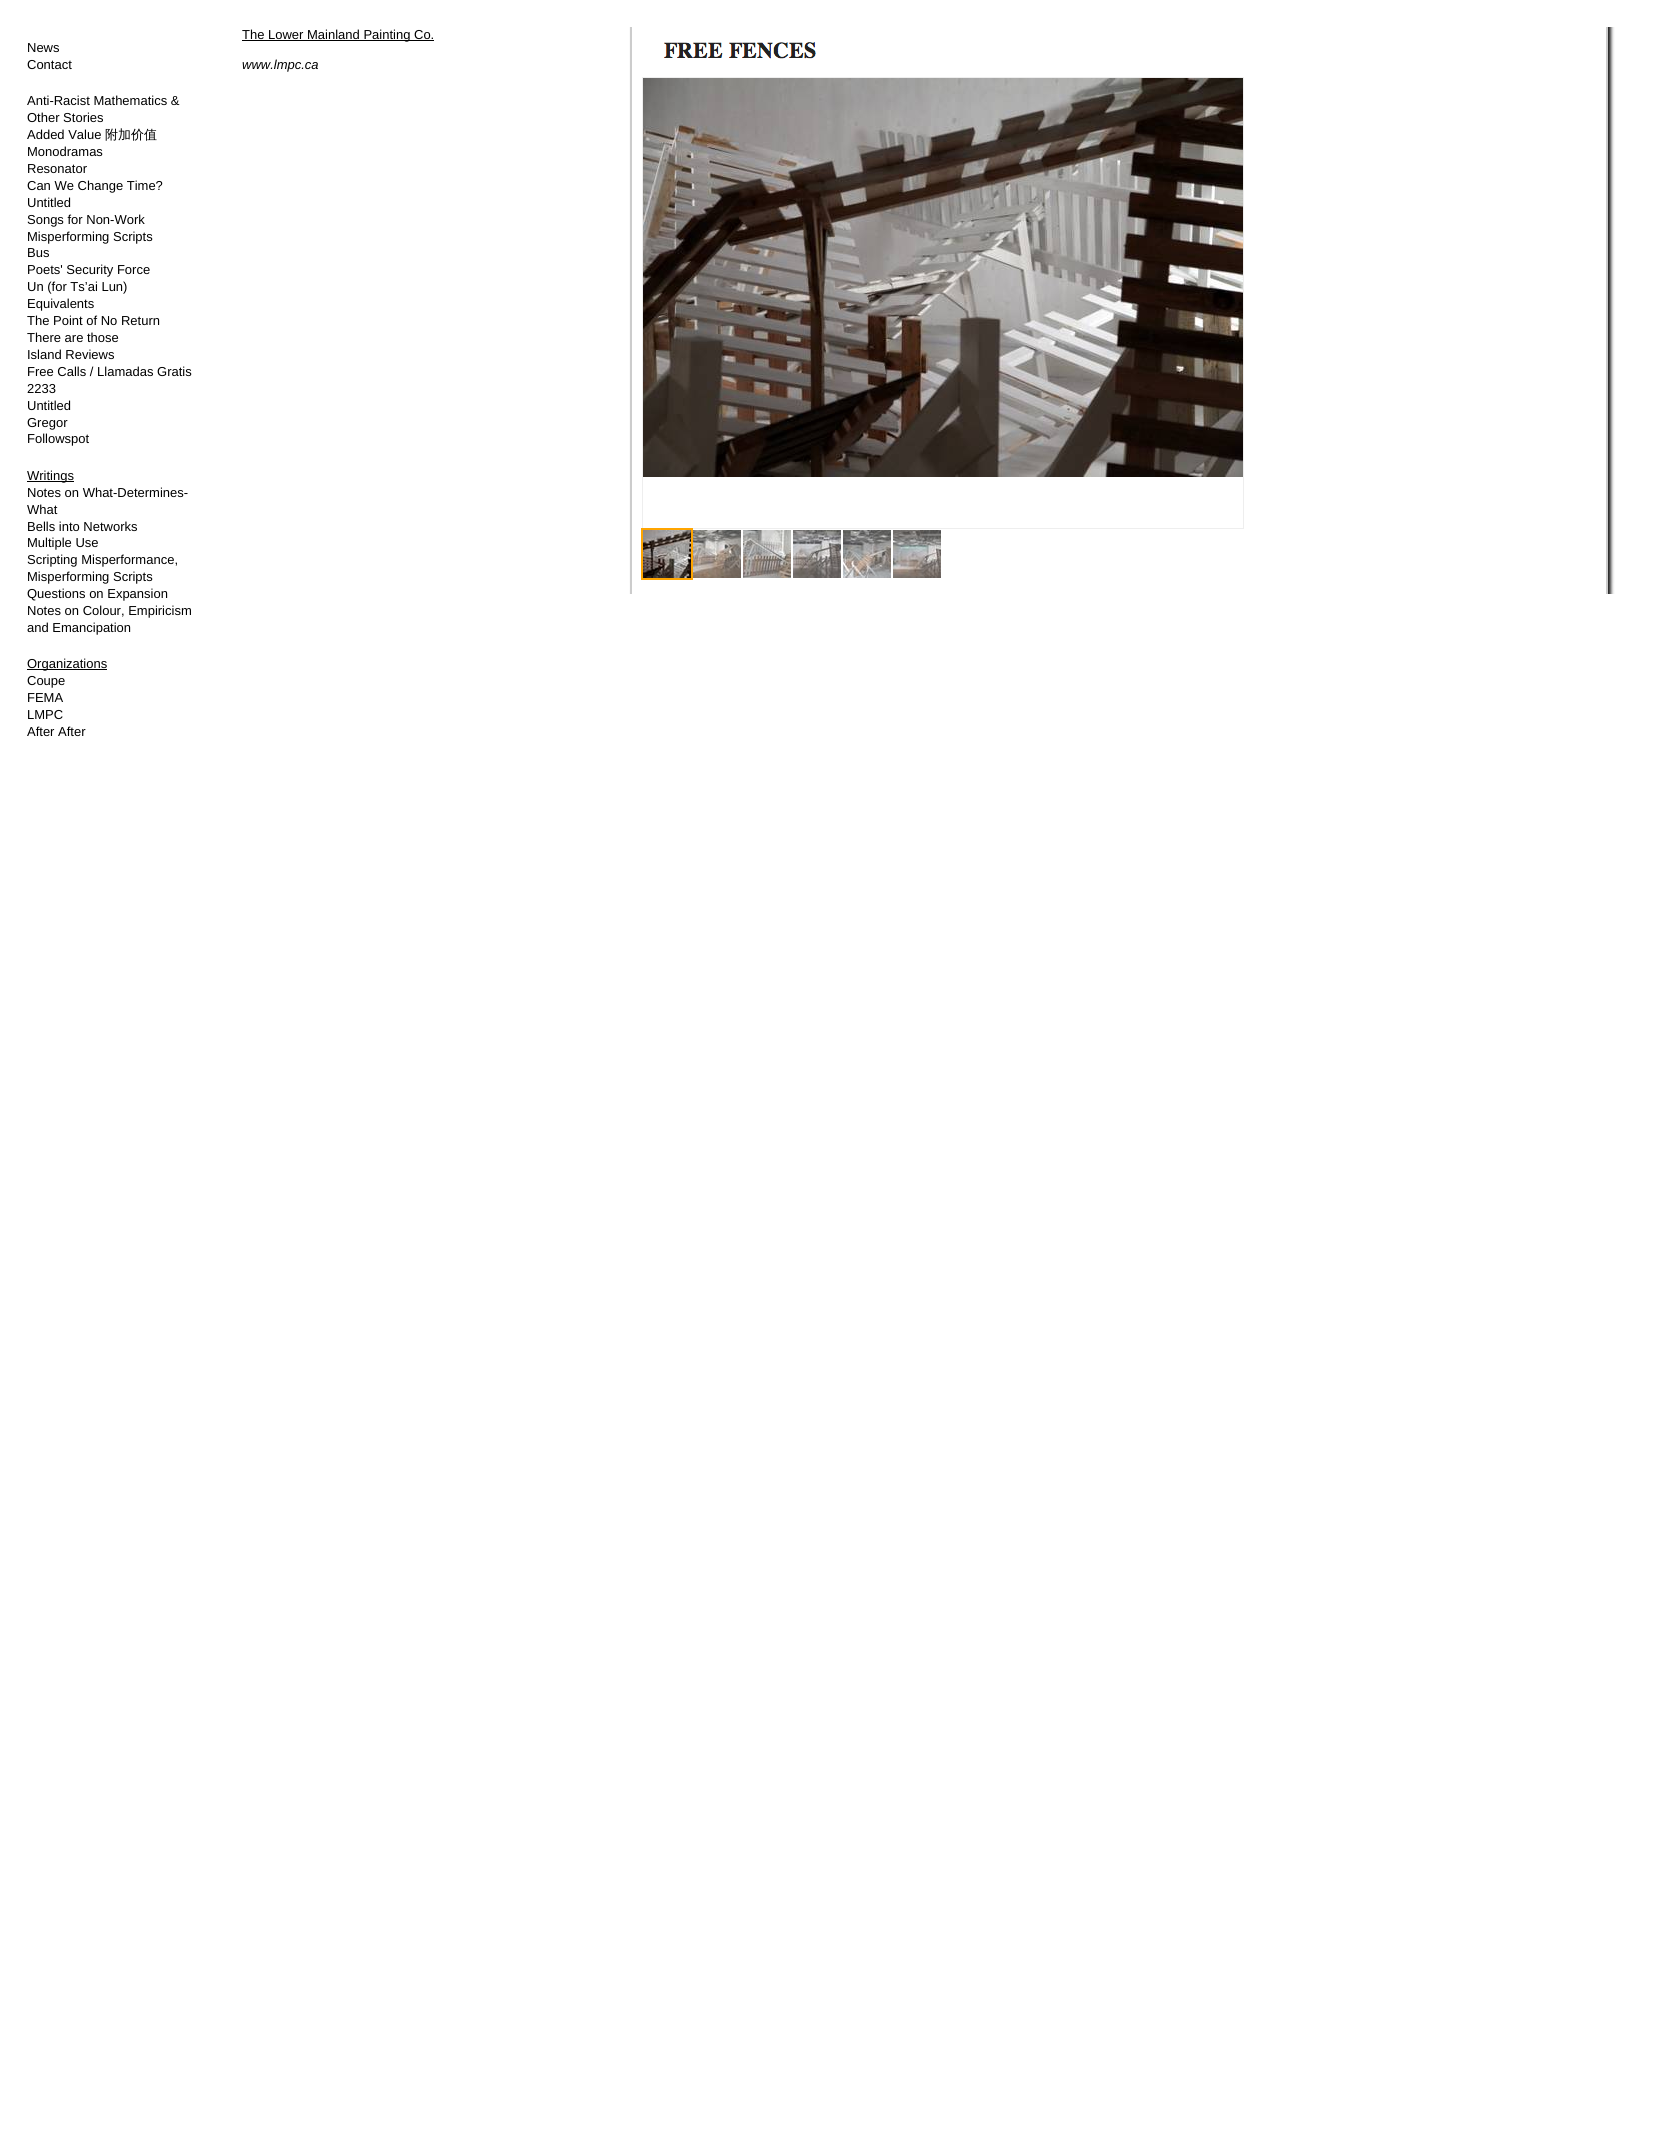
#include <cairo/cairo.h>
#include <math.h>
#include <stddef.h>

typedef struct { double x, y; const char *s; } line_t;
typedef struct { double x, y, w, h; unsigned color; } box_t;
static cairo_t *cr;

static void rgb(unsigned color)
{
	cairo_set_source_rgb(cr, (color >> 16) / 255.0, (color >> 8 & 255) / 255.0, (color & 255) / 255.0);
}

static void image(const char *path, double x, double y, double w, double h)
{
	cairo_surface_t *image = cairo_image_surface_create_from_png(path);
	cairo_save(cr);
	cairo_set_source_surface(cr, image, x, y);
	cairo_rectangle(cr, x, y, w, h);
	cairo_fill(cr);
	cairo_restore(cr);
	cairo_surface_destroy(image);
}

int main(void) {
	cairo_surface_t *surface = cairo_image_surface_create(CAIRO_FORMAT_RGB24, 1655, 2153);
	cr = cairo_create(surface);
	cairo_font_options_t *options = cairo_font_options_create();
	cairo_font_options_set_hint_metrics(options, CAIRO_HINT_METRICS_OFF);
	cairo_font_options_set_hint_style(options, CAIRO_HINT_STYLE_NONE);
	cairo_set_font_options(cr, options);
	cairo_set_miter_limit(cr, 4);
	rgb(0xffffff);
	cairo_paint(cr);
	{
		static const box_t items[] = {
			{27, 481, 47, 1, 0x000000},
			{27, 669, 80, 1, 0x000000},
			{242, 40, 192, 1, 0x000000},
		};
		for (size_t i = 0; i < sizeof items / sizeof *items; i++) {
			rgb(items[i].color);
			cairo_rectangle(cr, items[i].x, items[i].y, items[i].w, items[i].h);
			cairo_fill(cr);
		}
	}
	image("img/1.png", 629, 27, 986, 567);
	cairo_select_font_face(cr, "Liberation Sans", CAIRO_FONT_SLANT_NORMAL, CAIRO_FONT_WEIGHT_NORMAL);
	cairo_set_font_size(cr, 13);
	{
		static const line_t items[] = {
			{27, 52, "News"},
			{27, 69, "Contact"},
			{27, 105, "Anti-Racist Mathematics &"},
			{27, 122, "Other Stories"},
			{27, 139, "Added Value"},
		};
		for (size_t i = 0; i < sizeof items / sizeof *items; i++) {
			cairo_move_to(cr, items[i].x, items[i].y);
			cairo_show_text(cr, items[i].s);
		}
	}
	cairo_select_font_face(cr, "WenQuanYi Zen Hei Medium", CAIRO_FONT_SLANT_NORMAL, CAIRO_FONT_WEIGHT_NORMAL);
	cairo_move_to(cr, 105, 139);
	cairo_show_text(cr, "附加价值");
	cairo_select_font_face(cr, "Liberation Sans", CAIRO_FONT_SLANT_NORMAL, CAIRO_FONT_WEIGHT_NORMAL);
	{
		static const line_t items[] = {
			{27, 156, "Monodramas"},
			{27, 173, "Resonator"},
			{27, 190, "Can We Change Time?"},
			{27, 207, "Untitled"},
			{27, 224, "Songs for Non-Work"},
			{27, 241, "Misperforming Scripts"},
			{27, 257, "Bus"},
			{27, 274, "Poets' Security Force"},
			{27, 291, "Un (for Ts’ai Lun)"},
			{27, 308, "Equivalents"},
			{27, 325, "The Point of No Return"},
			{27, 342, "There are those"},
			{27, 359, "Island Reviews"},
			{27, 376, "Free Calls / Llamadas Gratis"},
			{27, 393, "2233"},
			{27, 410, "Untitled"},
			{27, 427, "Gregor"},
			{27, 443, "Followspot"},
			{27, 480, "Writings"},
			{27, 497, "Notes on What-Determines-"},
			{27, 514, "What"},
			{27, 531, "Bells into Networks"},
			{27, 547, "Multiple Use"},
			{27, 564, "Scripting Misperformance,"},
			{27, 581, "Misperforming Scripts"},
			{27, 598, "Questions on Expansion"},
			{27, 615, "Notes on Colour, Empiricism"},
			{27, 632, "and Emancipation"},
			{27, 668, "Organizations"},
			{27, 685, "Coupe"},
			{27, 702, "FEMA"},
			{27, 719, "LMPC"},
			{27, 736, "After After"},
			{242, 39, "The Lower Mainland Painting Co."},
		};
		for (size_t i = 0; i < sizeof items / sizeof *items; i++) {
			cairo_move_to(cr, items[i].x, items[i].y);
			cairo_show_text(cr, items[i].s);
		}
	}
	cairo_select_font_face(cr, "Liberation Sans", CAIRO_FONT_SLANT_ITALIC, CAIRO_FONT_WEIGHT_NORMAL);
	cairo_move_to(cr, 242, 69);
	cairo_show_text(cr, "www.lmpc.ca");
	cairo_surface_write_to_png(surface, "page.png");
	cairo_font_options_destroy(options);
	cairo_destroy(cr);
	cairo_surface_destroy(surface);
	return 0;
}
